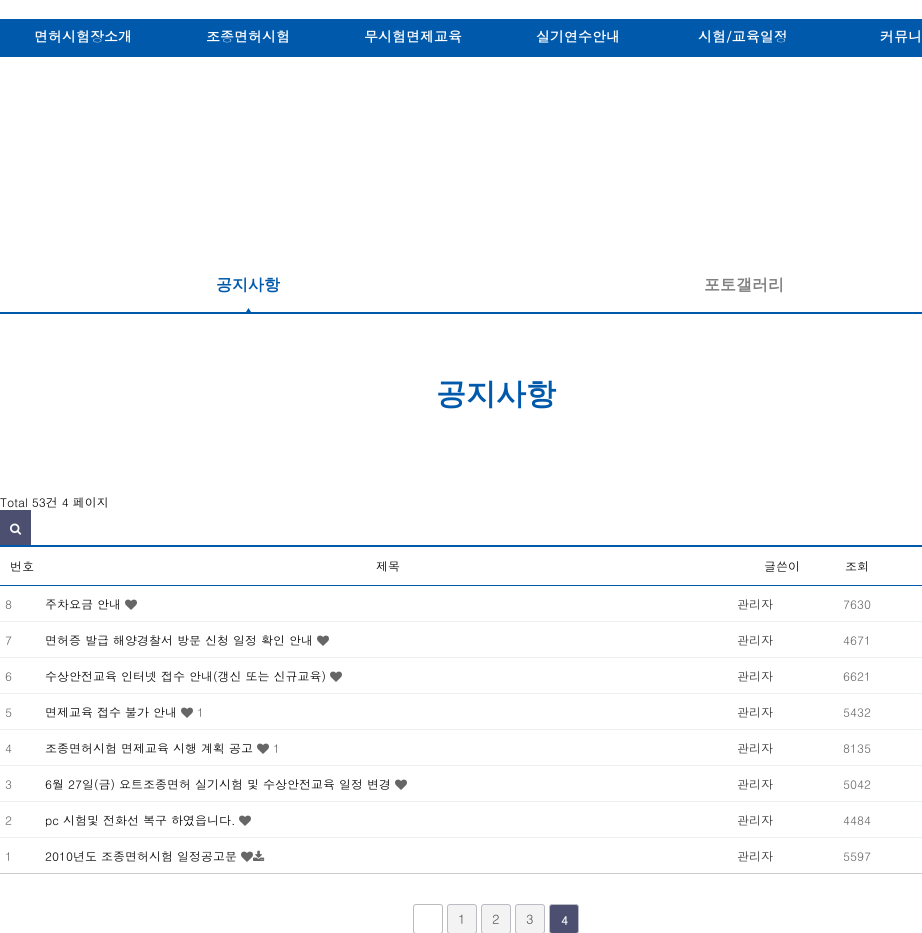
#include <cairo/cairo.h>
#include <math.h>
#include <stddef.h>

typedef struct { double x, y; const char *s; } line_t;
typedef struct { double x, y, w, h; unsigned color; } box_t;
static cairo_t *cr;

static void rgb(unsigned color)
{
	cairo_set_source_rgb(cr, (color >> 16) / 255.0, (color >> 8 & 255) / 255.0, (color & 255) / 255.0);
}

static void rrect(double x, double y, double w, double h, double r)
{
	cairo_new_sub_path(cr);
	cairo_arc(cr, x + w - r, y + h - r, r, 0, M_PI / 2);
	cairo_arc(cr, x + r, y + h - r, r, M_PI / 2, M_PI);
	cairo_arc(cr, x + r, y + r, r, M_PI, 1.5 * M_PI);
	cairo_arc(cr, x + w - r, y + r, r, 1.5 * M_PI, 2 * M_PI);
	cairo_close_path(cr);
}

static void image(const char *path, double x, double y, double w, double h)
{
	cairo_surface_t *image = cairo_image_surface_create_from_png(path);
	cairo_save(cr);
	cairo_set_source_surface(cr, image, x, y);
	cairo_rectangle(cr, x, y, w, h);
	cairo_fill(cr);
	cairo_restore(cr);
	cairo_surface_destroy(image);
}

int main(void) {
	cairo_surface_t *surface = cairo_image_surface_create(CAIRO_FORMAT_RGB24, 922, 933);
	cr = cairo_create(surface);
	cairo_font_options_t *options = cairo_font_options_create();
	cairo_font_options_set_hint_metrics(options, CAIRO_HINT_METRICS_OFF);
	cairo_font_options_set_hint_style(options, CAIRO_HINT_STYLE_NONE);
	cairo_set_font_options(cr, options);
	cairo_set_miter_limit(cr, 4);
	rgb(0xffffff);
	cairo_paint(cr);
	rgb(0x0059ab);
	cairo_rectangle(cr, 0, 19, 922, 38);
	cairo_fill(cr);
	cairo_rectangle(cr, 0, 312, 922, 2);
	cairo_fill(cr);
	image("img/1.png", 246, 308, 5, 4);
	rgb(0x4c4f6f);
	cairo_rectangle(cr, 0, 510, 31, 35);
	cairo_fill(cr);
	image("img/2.png", 10, 523, 12, 12);
	{
		static const box_t items[] = {
			{0, 873, 922, 1, 0xcccccc},
			{0, 545, 922, 2, 0x0059ab},
			{0, 585, 922, 1, 0x0059ab},
		};
		for (size_t i = 0; i < sizeof items / sizeof *items; i++) {
			rgb(items[i].color);
			cairo_rectangle(cr, items[i].x, items[i].y, items[i].w, items[i].h);
			cairo_fill(cr);
		}
	}
	image("img/3.png", 125, 599, 12, 11);
	rgb(0xecf0f1);
	cairo_rectangle(cr, 0, 621, 922, 1);
	cairo_fill(cr);
	image("img/3.png", 317, 635, 12, 11);
	cairo_rectangle(cr, 0, 657, 922, 1);
	cairo_fill(cr);
	image("img/3.png", 330, 671, 12, 11);
	cairo_rectangle(cr, 0, 693, 922, 1);
	cairo_fill(cr);
	image("img/3.png", 181, 707, 12, 11);
	cairo_rectangle(cr, 0, 729, 922, 1);
	cairo_fill(cr);
	image("img/3.png", 257, 743, 12, 11);
	cairo_rectangle(cr, 0, 765, 922, 1);
	cairo_fill(cr);
	image("img/3.png", 395, 779, 12, 11);
	cairo_rectangle(cr, 0, 801, 922, 1);
	cairo_fill(cr);
	image("img/3.png", 239, 815, 12, 11);
	cairo_rectangle(cr, 0, 837, 922, 1);
	cairo_fill(cr);
	image("img/3.png", 241, 851, 12, 11);
	image("img/4.png", 253, 850, 12, 11);
	rrect(413.5, 904.5, 29, 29, 2.5);
	rgb(0xbbbbbb);
	cairo_set_line_width(cr, 1);
	cairo_stroke(cr);
	rgb(0xf3f3f3);
	rrect(447.5, 904.5, 29, 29, 2.5);
	cairo_fill_preserve(cr);
	rgb(0xbbbcc3);
	cairo_stroke(cr);
	rgb(0xf3f3f3);
	rrect(481.5, 904.5, 29, 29, 2.5);
	cairo_fill_preserve(cr);
	rgb(0xbbbcc3);
	cairo_stroke(cr);
	rgb(0xf3f3f3);
	rrect(515.5, 904.5, 29, 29, 2.5);
	cairo_fill_preserve(cr);
	rgb(0xbbbcc3);
	cairo_stroke(cr);
	rgb(0x4c4f6f);
	rrect(549.5, 904.5, 29, 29, 2.5);
	cairo_fill_preserve(cr);
	rgb(0xbbbcc3);
	cairo_stroke(cr);
	cairo_select_font_face(cr, "Dotum", CAIRO_FONT_SLANT_NORMAL, CAIRO_FONT_WEIGHT_BOLD);
	cairo_set_font_size(cr, 14);
	rgb(0xffffff);
	{
		static const line_t items[] = {
			{34, 42, "면허시험장소개"},
			{206, 42, "조종면허시험"},
			{364, 42, "무시험면제교육"},
			{536, 42, "실기연수안내"},
			{698, 42, "시험/교육일정"},
			{880, 42, "커뮤니"},
		};
		for (size_t i = 0; i < sizeof items / sizeof *items; i++) {
			cairo_move_to(cr, items[i].x, items[i].y);
			cairo_show_text(cr, items[i].s);
		}
	}
	cairo_select_font_face(cr, "WenQuanYi Zen Hei", CAIRO_FONT_SLANT_NORMAL, CAIRO_FONT_WEIGHT_BOLD);
	cairo_set_font_size(cr, 16);
	rgb(0x0059ab);
	cairo_move_to(cr, 216, 290);
	cairo_show_text(cr, "공지사항");
	rgb(0x808080);
	cairo_move_to(cr, 704, 290);
	cairo_show_text(cr, "포토갤러리");
	cairo_set_font_size(cr, 30);
	rgb(0x0059ab);
	cairo_move_to(cr, 436, 404);
	cairo_show_text(cr, "공지사항");
	cairo_select_font_face(cr, "Dotum", CAIRO_FONT_SLANT_NORMAL, CAIRO_FONT_WEIGHT_NORMAL);
	cairo_set_font_size(cr, 12);
	rgb(0x000000);
	{
		static const line_t items[] = {
			{0, 507, "Total 53건 4 페이지"},
			{10, 571, "번호"},
			{376, 571, "제목"},
			{764, 571, "글쓴이"},
			{845, 571, "조회"},
		};
		for (size_t i = 0; i < sizeof items / sizeof *items; i++) {
			cairo_move_to(cr, items[i].x, items[i].y);
			cairo_show_text(cr, items[i].s);
		}
	}
	rgb(0x666666);
	cairo_move_to(cr, 5, 609);
	cairo_show_text(cr, "8");
	rgb(0x000000);
	cairo_move_to(cr, 45, 609);
	cairo_show_text(cr, "주차요금 안내");
	rgb(0x333333);
	cairo_move_to(cr, 737, 609);
	cairo_show_text(cr, "관리자");
	rgb(0x666666);
	cairo_move_to(cr, 843, 609);
	cairo_show_text(cr, "7630");
	cairo_move_to(cr, 5, 645);
	cairo_show_text(cr, "7");
	rgb(0x000000);
	cairo_move_to(cr, 45, 645);
	cairo_show_text(cr, "면허증 발급 해양경찰서 방문 신청 일정 확인 안내");
	rgb(0x333333);
	cairo_move_to(cr, 737, 645);
	cairo_show_text(cr, "관리자");
	rgb(0x666666);
	cairo_move_to(cr, 843, 645);
	cairo_show_text(cr, "4671");
	cairo_move_to(cr, 5, 681);
	cairo_show_text(cr, "6");
	rgb(0x000000);
	cairo_move_to(cr, 45, 681);
	cairo_show_text(cr, "수상안전교육 인터넷 접수 안내(갱신 또는 신규교육)");
	rgb(0x333333);
	cairo_move_to(cr, 737, 681);
	cairo_show_text(cr, "관리자");
	rgb(0x666666);
	cairo_move_to(cr, 843, 681);
	cairo_show_text(cr, "6621");
	cairo_move_to(cr, 5, 717);
	cairo_show_text(cr, "5");
	rgb(0x000000);
	cairo_move_to(cr, 45, 717);
	cairo_show_text(cr, "면제교육 접수 불가 안내");
	rgb(0x666666);
	cairo_move_to(cr, 197, 717);
	cairo_show_text(cr, "1");
	rgb(0x333333);
	cairo_move_to(cr, 737, 717);
	cairo_show_text(cr, "관리자");
	rgb(0x666666);
	cairo_move_to(cr, 843, 717);
	cairo_show_text(cr, "5432");
	cairo_move_to(cr, 5, 753);
	cairo_show_text(cr, "4");
	rgb(0x000000);
	cairo_move_to(cr, 45, 753);
	cairo_show_text(cr, "조종면허시험 면제교육 시행 계획 공고");
	rgb(0x666666);
	cairo_move_to(cr, 273, 753);
	cairo_show_text(cr, "1");
	rgb(0x333333);
	cairo_move_to(cr, 737, 753);
	cairo_show_text(cr, "관리자");
	rgb(0x666666);
	cairo_move_to(cr, 843, 753);
	cairo_show_text(cr, "8135");
	cairo_move_to(cr, 5, 789);
	cairo_show_text(cr, "3");
	rgb(0x000000);
	cairo_move_to(cr, 45, 789);
	cairo_show_text(cr, "6월 27일(금) 요트조종면허 실기시험 및 수상안전교육 일정 변경");
	rgb(0x333333);
	cairo_move_to(cr, 737, 789);
	cairo_show_text(cr, "관리자");
	rgb(0x666666);
	cairo_move_to(cr, 843, 789);
	cairo_show_text(cr, "5042");
	cairo_move_to(cr, 5, 825);
	cairo_show_text(cr, "2");
	rgb(0x000000);
	cairo_move_to(cr, 45, 825);
	cairo_show_text(cr, "pc 시험및 전화선 복구 하였읍니다.");
	rgb(0x333333);
	cairo_move_to(cr, 737, 825);
	cairo_show_text(cr, "관리자");
	rgb(0x666666);
	cairo_move_to(cr, 843, 825);
	cairo_show_text(cr, "4484");
	cairo_move_to(cr, 5, 861);
	cairo_show_text(cr, "1");
	rgb(0x000000);
	cairo_move_to(cr, 45, 861);
	cairo_show_text(cr, "2010년도 조종면허시험 일정공고문");
	rgb(0x333333);
	cairo_move_to(cr, 737, 861);
	cairo_show_text(cr, "관리자");
	rgb(0x666666);
	cairo_move_to(cr, 843, 861);
	cairo_show_text(cr, "5597");
	cairo_set_font_size(cr, 13);
	rgb(0x555555);
	{
		static const line_t items[] = {
			{458, 924, "1"},
			{492, 924, "2"},
			{526, 924, "3"},
		};
		for (size_t i = 0; i < sizeof items / sizeof *items; i++) {
			cairo_move_to(cr, items[i].x, items[i].y);
			cairo_show_text(cr, items[i].s);
		}
	}
	cairo_select_font_face(cr, "Dotum", CAIRO_FONT_SLANT_NORMAL, CAIRO_FONT_WEIGHT_BOLD);
	cairo_set_font_size(cr, 12);
	rgb(0xffffff);
	cairo_move_to(cr, 561, 925);
	cairo_show_text(cr, "4");
	cairo_surface_write_to_png(surface, "page.png");
	cairo_font_options_destroy(options);
	cairo_destroy(cr);
	cairo_surface_destroy(surface);
	return 0;
}
